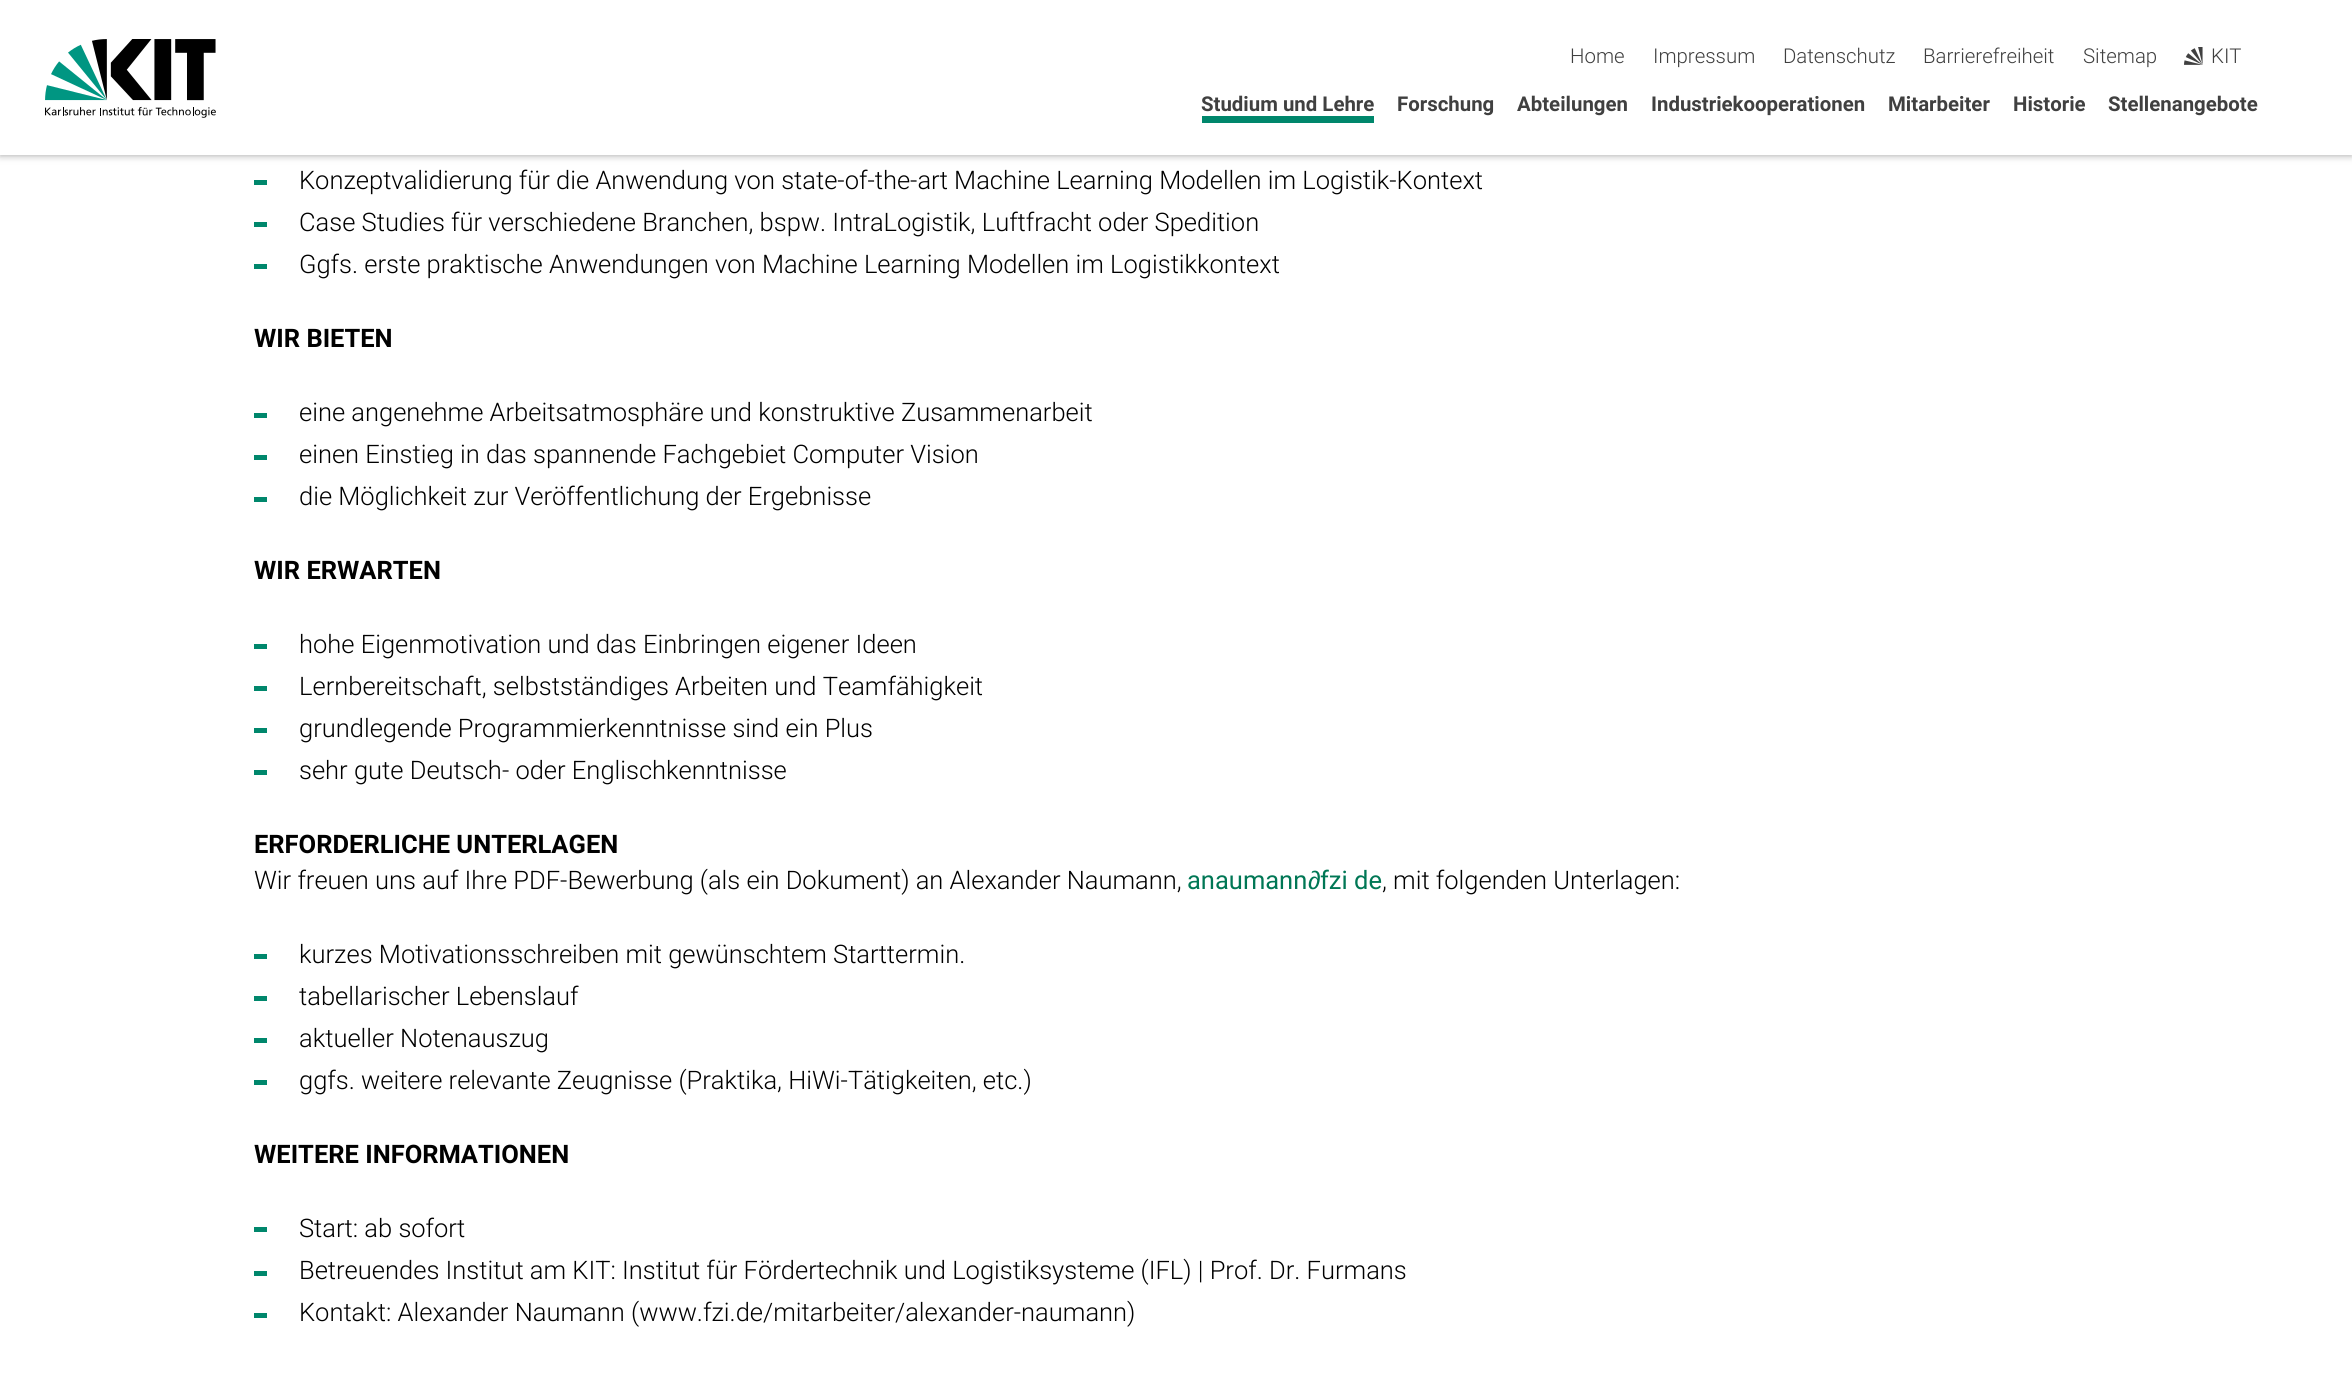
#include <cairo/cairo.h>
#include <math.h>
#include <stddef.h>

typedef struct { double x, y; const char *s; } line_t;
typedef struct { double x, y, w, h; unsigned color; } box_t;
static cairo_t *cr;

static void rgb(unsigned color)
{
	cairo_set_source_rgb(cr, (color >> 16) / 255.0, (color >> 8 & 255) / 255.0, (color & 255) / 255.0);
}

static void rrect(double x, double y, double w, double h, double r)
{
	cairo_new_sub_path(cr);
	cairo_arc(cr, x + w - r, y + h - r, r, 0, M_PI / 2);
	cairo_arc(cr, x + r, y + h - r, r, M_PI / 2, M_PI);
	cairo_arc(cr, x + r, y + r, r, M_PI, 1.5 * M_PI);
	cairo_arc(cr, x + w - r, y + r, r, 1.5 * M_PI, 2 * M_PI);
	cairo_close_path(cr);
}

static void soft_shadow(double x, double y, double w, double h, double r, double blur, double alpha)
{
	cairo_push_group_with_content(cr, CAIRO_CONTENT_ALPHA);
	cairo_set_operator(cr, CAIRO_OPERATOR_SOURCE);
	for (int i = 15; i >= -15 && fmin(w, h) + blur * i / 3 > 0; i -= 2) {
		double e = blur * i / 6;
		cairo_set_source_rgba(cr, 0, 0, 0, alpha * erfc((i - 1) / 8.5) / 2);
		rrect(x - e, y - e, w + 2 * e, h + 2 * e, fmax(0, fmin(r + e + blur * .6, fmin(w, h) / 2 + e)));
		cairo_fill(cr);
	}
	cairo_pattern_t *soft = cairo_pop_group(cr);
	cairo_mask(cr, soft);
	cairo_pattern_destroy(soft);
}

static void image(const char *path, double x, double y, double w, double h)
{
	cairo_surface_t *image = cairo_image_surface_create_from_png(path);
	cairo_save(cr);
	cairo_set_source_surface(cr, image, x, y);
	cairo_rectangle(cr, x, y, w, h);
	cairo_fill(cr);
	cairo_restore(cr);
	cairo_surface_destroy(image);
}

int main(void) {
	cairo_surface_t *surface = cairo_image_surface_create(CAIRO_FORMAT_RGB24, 2352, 1394);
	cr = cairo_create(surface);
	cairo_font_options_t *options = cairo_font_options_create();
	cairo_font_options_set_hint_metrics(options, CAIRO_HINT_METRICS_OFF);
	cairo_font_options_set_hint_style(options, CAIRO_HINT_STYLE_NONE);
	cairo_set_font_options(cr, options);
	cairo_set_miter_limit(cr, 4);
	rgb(0xffffff);
	cairo_paint(cr);
	rgb(0x404040);
	soft_shadow(0, 0, 2352, 155, 0, 4, 0.5);
	rgb(0xffffff);
	cairo_rectangle(cr, 0, 0, 2352, 155);
	cairo_fill(cr);
	image("img/1.png", 45, 39, 171, 79);
	image("img/2.png", 2184, 47, 19, 18);
	{
		static const box_t items[] = {
			{1202, 116, 172, 7, 0x00876c},
			{254, 180, 13, 5, 0x00876c},
			{254, 222, 13, 5, 0x00876c},
			{254, 264, 13, 5, 0x00876c},
			{254, 413, 13, 5, 0x00876c},
			{254, 455, 13, 5, 0x00876c},
			{254, 497, 13, 5, 0x00876c},
			{254, 644, 13, 5, 0x00876c},
			{254, 686, 13, 5, 0x00876c},
			{254, 728, 13, 5, 0x00876c},
			{254, 770, 13, 5, 0x00876c},
			{254, 954, 13, 5, 0x00876c},
			{254, 996, 13, 5, 0x00876c},
			{254, 1038, 13, 5, 0x00876c},
			{254, 1080, 13, 5, 0x00876c},
			{254, 1227, 13, 5, 0x00876c},
			{254, 1271, 13, 5, 0x00876c},
			{254, 1313, 13, 5, 0x00876c},
		};
		for (size_t i = 0; i < sizeof items / sizeof *items; i++) {
			rgb(items[i].color);
			cairo_rectangle(cr, items[i].x, items[i].y, items[i].w, items[i].h);
			cairo_fill(cr);
		}
	}
	cairo_select_font_face(cr, "Roboto Light", CAIRO_FONT_SLANT_NORMAL, CAIRO_FONT_WEIGHT_NORMAL);
	cairo_set_font_size(cr, 20.4);
	rgb(0x404040);
	{
		static const line_t items[] = {
			{1570, 63, "Home"},
			{1653, 63, "Impressum"},
			{1783, 63, "Datenschutz"},
			{1923, 63, "Barrierefreiheit"},
			{2083, 63, "Sitemap"},
			{2211, 63, "KIT"},
		};
		for (size_t i = 0; i < sizeof items / sizeof *items; i++) {
			cairo_move_to(cr, items[i].x, items[i].y);
			cairo_show_text(cr, items[i].s);
		}
	}
	cairo_select_font_face(cr, "Roboto", CAIRO_FONT_SLANT_NORMAL, CAIRO_FONT_WEIGHT_BOLD);
	{
		static const line_t items[] = {
			{1201, 111, "Studium und Lehre"},
			{1397, 111, "Forschung"},
			{1517, 111, "Abteilungen"},
			{1651, 111, "Industriekooperationen"},
			{1888, 111, "Mitarbeiter"},
			{2013, 111, "Historie"},
			{2108, 111, "Stellenangebote"},
		};
		for (size_t i = 0; i < sizeof items / sizeof *items; i++) {
			cairo_move_to(cr, items[i].x, items[i].y);
			cairo_show_text(cr, items[i].s);
		}
	}
	cairo_select_font_face(cr, "Roboto Light", CAIRO_FONT_SLANT_NORMAL, CAIRO_FONT_WEIGHT_NORMAL);
	cairo_set_font_size(cr, 25.5);
	rgb(0x000000);
	{
		static const line_t items[] = {
			{299, 189, "Konzeptvalidierung für die Anwendung von state-of-the-art Machine Learning Modellen im Logistik-Kontext"},
			{299, 231, "Case Studies für verschiedene Branchen, bspw. IntraLogistik, Luftfracht oder Spedition"},
			{299, 273, "Ggfs. erste praktische Anwendungen von Machine Learning Modellen im Logistikkontext"},
		};
		for (size_t i = 0; i < sizeof items / sizeof *items; i++) {
			cairo_move_to(cr, items[i].x, items[i].y);
			cairo_show_text(cr, items[i].s);
		}
	}
	cairo_select_font_face(cr, "Roboto", CAIRO_FONT_SLANT_NORMAL, CAIRO_FONT_WEIGHT_BOLD);
	cairo_move_to(cr, 254, 347);
	cairo_show_text(cr, "WIR BIETEN");
	cairo_select_font_face(cr, "Roboto Light", CAIRO_FONT_SLANT_NORMAL, CAIRO_FONT_WEIGHT_NORMAL);
	{
		static const line_t items[] = {
			{299, 421, "eine angenehme Arbeitsatmosphäre und konstruktive Zusammenarbeit"},
			{299, 463, "einen Einstieg in das spannende Fachgebiet Computer Vision"},
			{299, 505, "die Möglichkeit zur Veröffentlichung der Ergebnisse"},
		};
		for (size_t i = 0; i < sizeof items / sizeof *items; i++) {
			cairo_move_to(cr, items[i].x, items[i].y);
			cairo_show_text(cr, items[i].s);
		}
	}
	cairo_select_font_face(cr, "Roboto", CAIRO_FONT_SLANT_NORMAL, CAIRO_FONT_WEIGHT_BOLD);
	cairo_move_to(cr, 254, 579);
	cairo_show_text(cr, "WIR ERWARTEN");
	cairo_select_font_face(cr, "Roboto Light", CAIRO_FONT_SLANT_NORMAL, CAIRO_FONT_WEIGHT_NORMAL);
	{
		static const line_t items[] = {
			{299, 653, "hohe Eigenmotivation und das Einbringen eigener Ideen"},
			{299, 695, "Lernbereitschaft, selbstständiges Arbeiten und Teamfähigkeit"},
			{299, 737, "grundlegende Programmierkenntnisse sind ein Plus"},
			{299, 779, "sehr gute Deutsch- oder Englischkenntnisse"},
		};
		for (size_t i = 0; i < sizeof items / sizeof *items; i++) {
			cairo_move_to(cr, items[i].x, items[i].y);
			cairo_show_text(cr, items[i].s);
		}
	}
	cairo_select_font_face(cr, "Roboto", CAIRO_FONT_SLANT_NORMAL, CAIRO_FONT_WEIGHT_BOLD);
	cairo_move_to(cr, 254, 853);
	cairo_show_text(cr, "ERFORDERLICHE UNTERLAGEN");
	cairo_select_font_face(cr, "Roboto Light", CAIRO_FONT_SLANT_NORMAL, CAIRO_FONT_WEIGHT_NORMAL);
	cairo_move_to(cr, 254, 889);
	cairo_show_text(cr, "Wir freuen uns auf Ihre PDF-Bewerbung (als ein Dokument) an Alexander Naumann,");
	cairo_select_font_face(cr, "Roboto", CAIRO_FONT_SLANT_NORMAL, CAIRO_FONT_WEIGHT_NORMAL);
	rgb(0x007755);
	cairo_move_to(cr, 1187, 889);
	cairo_show_text(cr, "anaumann");
	cairo_select_font_face(cr, "Liberation Sans", CAIRO_FONT_SLANT_NORMAL, CAIRO_FONT_WEIGHT_NORMAL);
	cairo_move_to(cr, 1308, 889);
	cairo_show_text(cr, "∂");
	cairo_select_font_face(cr, "Roboto", CAIRO_FONT_SLANT_NORMAL, CAIRO_FONT_WEIGHT_NORMAL);
	cairo_move_to(cr, 1320, 889);
	cairo_show_text(cr, "fzi de");
	cairo_select_font_face(cr, "Roboto Light", CAIRO_FONT_SLANT_NORMAL, CAIRO_FONT_WEIGHT_NORMAL);
	rgb(0x000000);
	{
		static const line_t items[] = {
			{1382, 889, ", mit folgenden Unterlagen:"},
			{299, 963, "kurzes Motivationsschreiben mit gewünschtem Starttermin."},
			{299, 1005, "tabellarischer Lebenslauf"},
			{299, 1047, "aktueller Notenauszug"},
			{299, 1089, "ggfs. weitere relevante Zeugnisse (Praktika, HiWi-Tätigkeiten, etc.)"},
		};
		for (size_t i = 0; i < sizeof items / sizeof *items; i++) {
			cairo_move_to(cr, items[i].x, items[i].y);
			cairo_show_text(cr, items[i].s);
		}
	}
	cairo_select_font_face(cr, "Roboto", CAIRO_FONT_SLANT_NORMAL, CAIRO_FONT_WEIGHT_BOLD);
	cairo_move_to(cr, 254, 1163);
	cairo_show_text(cr, "WEITERE INFORMATIONEN");
	cairo_select_font_face(cr, "Roboto Light", CAIRO_FONT_SLANT_NORMAL, CAIRO_FONT_WEIGHT_NORMAL);
	{
		static const line_t items[] = {
			{299, 1237, "Start: ab sofort"},
			{299, 1279, "Betreuendes Institut am KIT: Institut für Fördertechnik und Logistiksysteme (IFL) | Prof. Dr. Furmans"},
			{299, 1321, "Kontakt: Alexander Naumann (www.fzi.de/mitarbeiter/alexander-naumann)"},
		};
		for (size_t i = 0; i < sizeof items / sizeof *items; i++) {
			cairo_move_to(cr, items[i].x, items[i].y);
			cairo_show_text(cr, items[i].s);
		}
	}
	cairo_surface_write_to_png(surface, "page.png");
	cairo_font_options_destroy(options);
	cairo_destroy(cr);
	cairo_surface_destroy(surface);
	return 0;
}
